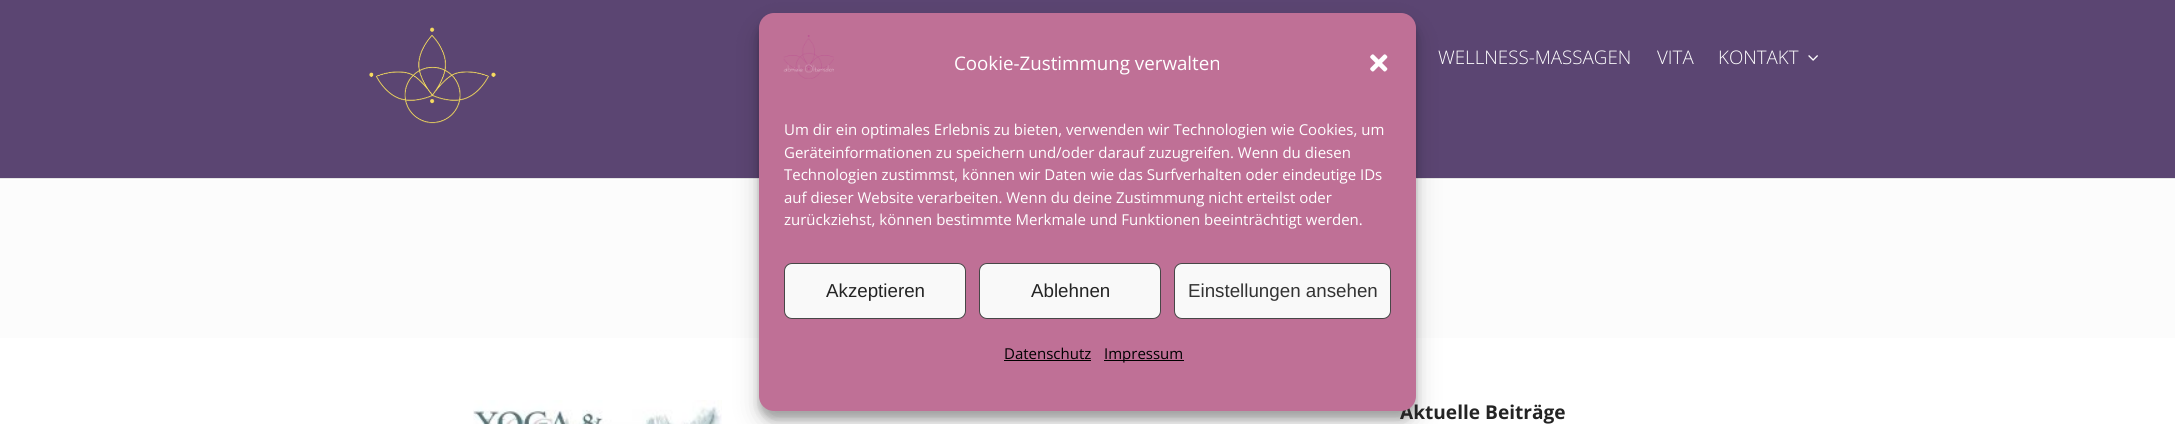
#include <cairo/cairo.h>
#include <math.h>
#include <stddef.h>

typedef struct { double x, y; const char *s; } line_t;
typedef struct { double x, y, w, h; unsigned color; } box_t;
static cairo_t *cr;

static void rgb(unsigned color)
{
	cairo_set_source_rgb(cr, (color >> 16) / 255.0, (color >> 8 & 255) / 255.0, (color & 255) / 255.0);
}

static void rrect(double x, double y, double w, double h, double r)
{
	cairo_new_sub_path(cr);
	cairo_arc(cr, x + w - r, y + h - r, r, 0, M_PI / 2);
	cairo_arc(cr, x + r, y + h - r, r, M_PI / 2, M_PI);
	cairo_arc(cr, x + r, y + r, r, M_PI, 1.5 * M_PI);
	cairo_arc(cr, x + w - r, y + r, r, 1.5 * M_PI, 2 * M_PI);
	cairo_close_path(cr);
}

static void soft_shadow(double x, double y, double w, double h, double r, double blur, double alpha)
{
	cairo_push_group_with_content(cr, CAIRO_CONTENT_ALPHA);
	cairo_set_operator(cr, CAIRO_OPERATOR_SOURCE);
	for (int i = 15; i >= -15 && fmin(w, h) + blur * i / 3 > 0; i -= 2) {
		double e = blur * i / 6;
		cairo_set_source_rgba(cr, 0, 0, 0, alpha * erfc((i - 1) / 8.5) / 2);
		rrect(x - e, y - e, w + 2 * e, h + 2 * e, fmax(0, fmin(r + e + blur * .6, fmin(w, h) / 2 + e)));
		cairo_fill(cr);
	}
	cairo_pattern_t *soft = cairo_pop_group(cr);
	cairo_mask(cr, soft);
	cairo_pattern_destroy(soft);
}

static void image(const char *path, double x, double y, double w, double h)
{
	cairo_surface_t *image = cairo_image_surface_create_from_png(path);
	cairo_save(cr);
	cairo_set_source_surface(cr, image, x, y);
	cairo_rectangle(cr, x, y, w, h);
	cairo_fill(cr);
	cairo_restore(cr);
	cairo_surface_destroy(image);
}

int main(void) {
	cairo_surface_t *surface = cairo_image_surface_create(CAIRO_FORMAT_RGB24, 2175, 424);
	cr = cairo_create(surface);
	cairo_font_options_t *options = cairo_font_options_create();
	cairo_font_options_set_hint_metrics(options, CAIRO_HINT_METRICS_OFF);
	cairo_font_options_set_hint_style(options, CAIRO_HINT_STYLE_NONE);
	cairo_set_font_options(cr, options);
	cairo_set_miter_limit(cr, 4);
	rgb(0xffffff);
	cairo_paint(cr);
	{
		static const box_t items[] = {
			{0, 178, 2175, 1, 0xe6e6e6},
			{0, 0, 2175, 178, 0x5b4572},
			{0, 180, 2175, 158, 0xfcfcfc},
		};
		for (size_t i = 0; i < sizeof items / sizeof *items; i++) {
			rgb(items[i].color);
			cairo_rectangle(cr, items[i].x, items[i].y, items[i].w, items[i].h);
			cairo_fill(cr);
		}
	}
	rgb(0x000000);
	soft_shadow(759, 20, 657, 399, 15, 4, 0.23);
	image("img/5.png", 473, 400, 249, 24);
	soft_shadow(759, 25, 657, 399, 15, 12.5, 0.19);
	image("img/3.png", 369, 27, 127, 97);
	image("img/4.png", 1808, 55, 10, 6);
	cairo_select_font_face(cr, "Open Sans Light", CAIRO_FONT_SLANT_NORMAL, CAIRO_FONT_WEIGHT_NORMAL);
	cairo_set_font_size(cr, 18.75);
	rgb(0xffffff);
	{
		static const line_t items[] = {
			{1438, 64, "WELLNESS-MASSAGEN"},
			{1657, 64, "VITA"},
			{1718, 64, "KONTAKT"},
		};
		for (size_t i = 0; i < sizeof items / sizeof *items; i++) {
			cairo_move_to(cr, items[i].x, items[i].y);
			cairo_show_text(cr, items[i].s);
		}
	}
	cairo_select_font_face(cr, "Open Sans", CAIRO_FONT_SLANT_NORMAL, CAIRO_FONT_WEIGHT_BOLD);
	cairo_set_font_size(cr, 19.1);
	rgb(0x242424);
	cairo_move_to(cr, 1400, 419);
	cairo_show_text(cr, "Aktuelle Beiträge");
	rgb(0xbf7096);
	rrect(759, 13, 657, 398, 15);
	cairo_fill(cr);
	image("img/1.png", 783, 35, 51, 44);
	rgb(0x000000);
	cairo_rectangle(cr, 1104, 360, 80, 1);
	cairo_fill(cr);
	cairo_select_font_face(cr, "Open Sans", CAIRO_FONT_SLANT_NORMAL, CAIRO_FONT_WEIGHT_NORMAL);
	cairo_set_font_size(cr, 15);
	cairo_move_to(cr, 1104, 359);
	cairo_show_text(cr, "Impressum");
	cairo_move_to(cr, 1004, 359);
	cairo_show_text(cr, "Datenschutz");
	cairo_rectangle(cr, 1004, 360, 87, 1);
	cairo_fill(cr);
	rgb(0xf9f9f9);
	rrect(1174.5, 263.5, 216, 55, 7.5);
	cairo_fill_preserve(cr);
	rgb(0x474747);
	cairo_set_line_width(cr, 1);
	cairo_stroke(cr);
	cairo_select_font_face(cr, "Liberation Sans", CAIRO_FONT_SLANT_NORMAL, CAIRO_FONT_WEIGHT_NORMAL);
	cairo_set_font_size(cr, 18.75);
	rgb(0x333333);
	cairo_move_to(cr, 1188, 297);
	cairo_show_text(cr, "Einstellungen ansehen");
	rgb(0xf9f9f9);
	rrect(979.5, 263.5, 181, 55, 7.5);
	cairo_fill_preserve(cr);
	rgb(0x474747);
	cairo_stroke(cr);
	rgb(0x242424);
	cairo_move_to(cr, 1031, 297);
	cairo_show_text(cr, "Ablehnen");
	rgb(0xf9f9f9);
	rrect(784.5, 263.5, 181, 55, 7.5);
	cairo_fill_preserve(cr);
	rgb(0x474747);
	cairo_stroke(cr);
	rgb(0x242424);
	cairo_move_to(cr, 826, 297);
	cairo_show_text(cr, "Akzeptieren");
	cairo_select_font_face(cr, "Open Sans", CAIRO_FONT_SLANT_NORMAL, CAIRO_FONT_WEIGHT_NORMAL);
	cairo_set_font_size(cr, 15);
	rgb(0xffffff);
	{
		static const line_t items[] = {
			{784, 225, "zurückziehst, können bestimmte Merkmale und Funktionen beeinträchtigt werden."},
			{784, 203, "auf dieser Website verarbeiten. Wenn du deine Zustimmung nicht erteilst oder"},
			{784, 180, "Technologien zustimmst, können wir Daten wie das Surfverhalten oder eindeutige IDs"},
			{784, 158, "Geräteinformationen zu speichern und/oder darauf zuzugreifen. Wenn du diesen"},
			{784, 135, "Um dir ein optimales Erlebnis zu bieten, verwenden wir Technologien wie Cookies, um"},
		};
		for (size_t i = 0; i < sizeof items / sizeof *items; i++) {
			cairo_move_to(cr, items[i].x, items[i].y);
			cairo_show_text(cr, items[i].s);
		}
	}
	image("img/2.png", 1370, 54, 18, 18);
	cairo_set_font_size(cr, 18.75);
	cairo_move_to(cr, 954, 70);
	cairo_show_text(cr, "Cookie-Zustimmung verwalten");
	cairo_surface_write_to_png(surface, "page.png");
	cairo_font_options_destroy(options);
	cairo_destroy(cr);
	cairo_surface_destroy(surface);
	return 0;
}
